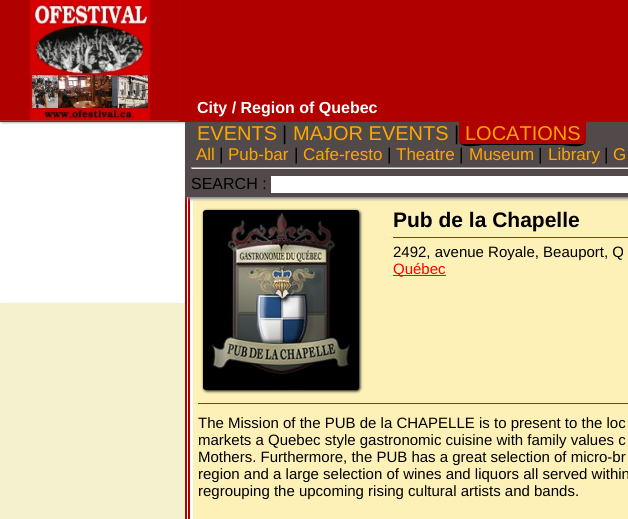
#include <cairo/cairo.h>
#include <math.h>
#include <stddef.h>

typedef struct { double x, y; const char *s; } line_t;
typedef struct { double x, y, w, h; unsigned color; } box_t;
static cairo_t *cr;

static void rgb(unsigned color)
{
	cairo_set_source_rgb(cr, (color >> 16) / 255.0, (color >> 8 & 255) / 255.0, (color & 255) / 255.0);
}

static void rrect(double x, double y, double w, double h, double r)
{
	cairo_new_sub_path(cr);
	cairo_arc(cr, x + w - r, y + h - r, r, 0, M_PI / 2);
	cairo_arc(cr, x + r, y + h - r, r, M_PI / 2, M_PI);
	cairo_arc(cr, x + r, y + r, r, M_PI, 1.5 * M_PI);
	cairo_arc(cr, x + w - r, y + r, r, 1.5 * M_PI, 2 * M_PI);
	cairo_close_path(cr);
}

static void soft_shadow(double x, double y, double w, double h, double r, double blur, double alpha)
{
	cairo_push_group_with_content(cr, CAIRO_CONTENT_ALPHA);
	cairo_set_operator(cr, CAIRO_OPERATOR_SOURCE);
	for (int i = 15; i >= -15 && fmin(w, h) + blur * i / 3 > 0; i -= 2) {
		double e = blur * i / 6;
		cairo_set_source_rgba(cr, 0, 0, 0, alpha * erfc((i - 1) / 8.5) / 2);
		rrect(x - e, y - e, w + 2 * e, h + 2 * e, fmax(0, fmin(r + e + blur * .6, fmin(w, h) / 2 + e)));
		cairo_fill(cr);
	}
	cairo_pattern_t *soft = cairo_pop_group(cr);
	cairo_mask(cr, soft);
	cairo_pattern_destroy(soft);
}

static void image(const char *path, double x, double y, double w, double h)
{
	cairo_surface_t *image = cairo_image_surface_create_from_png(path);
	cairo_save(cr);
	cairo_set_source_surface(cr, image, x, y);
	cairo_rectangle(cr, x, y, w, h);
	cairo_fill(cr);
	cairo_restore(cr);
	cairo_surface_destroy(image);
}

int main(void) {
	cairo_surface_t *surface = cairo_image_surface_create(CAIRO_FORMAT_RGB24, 628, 519);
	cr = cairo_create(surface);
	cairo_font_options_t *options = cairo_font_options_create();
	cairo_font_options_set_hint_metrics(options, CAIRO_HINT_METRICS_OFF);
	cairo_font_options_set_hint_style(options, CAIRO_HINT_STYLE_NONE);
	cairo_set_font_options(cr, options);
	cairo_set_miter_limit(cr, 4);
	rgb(0xffffff);
	cairo_paint(cr);
	rgb(0x808080);
	soft_shadow(2, 0, 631, 122, 0, 1.5, 1);
	rgb(0xb00000);
	cairo_rectangle(cr, 0, 0, 628, 122);
	cairo_fill(cr);
	cairo_save(cr);
	cairo_set_fill_rule(cr, CAIRO_FILL_RULE_EVEN_ODD);
	cairo_new_path(cr);
	cairo_move_to(cr, 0, 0);
	cairo_line_to(cr, 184, 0);
	cairo_line_to(cr, 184, 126);
	cairo_line_to(cr, 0, 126);
	cairo_close_path(cr);
	cairo_move_to(cr, 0, 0);
	cairo_line_to(cr, 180, 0);
	cairo_line_to(cr, 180, 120);
	cairo_line_to(cr, 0, 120);
	cairo_close_path(cr);
	cairo_clip(cr);
	rgb(0x808080);
	soft_shadow(-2, 0, 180, 120, 0, 1.5, 1);
	cairo_restore(cr);
	image("img/1.png", 30, 0, 120, 120);
	{
		static const box_t items[] = {
			{185, 197, 2, 322, 0xb00000},
			{188, 197, 2, 322, 0xb00000},
			{193, 200, 435, 319, 0xfdf1b8},
		};
		for (size_t i = 0; i < sizeof items / sizeof *items; i++) {
			rgb(items[i].color);
			cairo_rectangle(cr, items[i].x, items[i].y, items[i].w, items[i].h);
			cairo_fill(cr);
		}
	}
	rgb(0x808080);
	soft_shadow(187, 124, 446, 75, 0, 1.5, 1);
	rgb(0x524a4a);
	cairo_rectangle(cr, 185, 122, 443, 75);
	cairo_fill(cr);
	rgb(0x000000);
	cairo_new_path(cr);
	cairo_move_to(cr, 459, 140);
	cairo_curve_to(cr, 459, 150, 480, 145, 483, 145);
	cairo_line_to(cr, 562, 145);
	cairo_curve_to(cr, 565, 145, 586, 150, 586, 140);
	cairo_curve_to(cr, 586, 142, 584, 144, 582, 144);
	cairo_line_to(cr, 463, 144);
	cairo_curve_to(cr, 461, 144, 459, 142, 459, 140);
	cairo_close_path(cr);
	cairo_fill(cr);
	rgb(0xb10000);
	cairo_new_path(cr);
	cairo_move_to(cr, 459, 122);
	cairo_line_to(cr, 586, 122);
	cairo_line_to(cr, 586, 140);
	cairo_curve_to(cr, 586, 142, 584, 144, 582, 144);
	cairo_line_to(cr, 463, 144);
	cairo_curve_to(cr, 461, 144, 459, 142, 459, 140);
	cairo_close_path(cr);
	cairo_fill(cr);
	{
		static const box_t items[] = {
			{191, 167, 437, 1, 0x9f9f9f},
			{191, 168, 437, 1, 0xeeeeee},
			{191, 167, 1, 2, 0x9f9f9f},
			{271, 176, 357, 17, 0xffffff},
		};
		for (size_t i = 0; i < sizeof items / sizeof *items; i++) {
			rgb(items[i].color);
			cairo_rectangle(cr, items[i].x, items[i].y, items[i].w, items[i].h);
			cairo_fill(cr);
		}
	}
	rgb(0x808080);
	soft_shadow(-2, 305, 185, 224, 5, 1.5, 1);
	rgb(0xf4f1cf);
	cairo_rectangle(cr, 0, 303, 185, 216);
	cairo_fill(cr);
	rgb(0xff0000);
	cairo_rectangle(cr, 198, 403, 430, 1);
	cairo_fill(cr);
	rgb(0x000000);
	soft_shadow(204, 211, 156, 180, 3, 1.5, 1);
	image("img/2.png", 203, 210, 156, 180);
	rgb(0xff0000);
	cairo_rectangle(cr, 393, 237, 235, 1);
	cairo_fill(cr);
	cairo_rectangle(cr, 393, 275, 53, 1);
	cairo_fill(cr);
	cairo_select_font_face(cr, "Liberation Sans", CAIRO_FONT_SLANT_NORMAL, CAIRO_FONT_WEIGHT_BOLD);
	cairo_set_font_size(cr, 16);
	rgb(0xffffff);
	cairo_move_to(cr, 197, 113);
	cairo_show_text(cr, "City / Region of Quebec");
	cairo_select_font_face(cr, "Liberation Sans", CAIRO_FONT_SLANT_NORMAL, CAIRO_FONT_WEIGHT_NORMAL);
	cairo_set_font_size(cr, 20);
	rgb(0xffa500);
	cairo_move_to(cr, 197, 140);
	cairo_show_text(cr, "EVENTS");
	rgb(0x000000);
	cairo_move_to(cr, 282, 140);
	cairo_show_text(cr, "|");
	rgb(0xffa500);
	cairo_move_to(cr, 293, 140);
	cairo_show_text(cr, "MAJOR EVENTS");
	rgb(0x000000);
	cairo_move_to(cr, 454, 140);
	cairo_show_text(cr, "|");
	rgb(0xffa500);
	cairo_move_to(cr, 465, 140);
	cairo_show_text(cr, "LOCATIONS");
	cairo_set_font_size(cr, 17);
	cairo_move_to(cr, 196, 160);
	cairo_show_text(cr, "All");
	rgb(0x000000);
	cairo_move_to(cr, 219, 160);
	cairo_show_text(cr, "|");
	rgb(0xffa500);
	cairo_move_to(cr, 228, 160);
	cairo_show_text(cr, "Pub-bar");
	rgb(0x000000);
	cairo_move_to(cr, 294, 160);
	cairo_show_text(cr, "|");
	rgb(0xffa500);
	cairo_move_to(cr, 303, 160);
	cairo_show_text(cr, "Cafe-resto");
	rgb(0x000000);
	cairo_move_to(cr, 387, 160);
	cairo_show_text(cr, "|");
	rgb(0xffa500);
	cairo_move_to(cr, 396, 160);
	cairo_show_text(cr, "Theatre");
	rgb(0x000000);
	cairo_move_to(cr, 459, 160);
	cairo_show_text(cr, "|");
	rgb(0xffa500);
	cairo_move_to(cr, 469, 160);
	cairo_show_text(cr, "Museum");
	rgb(0x000000);
	cairo_move_to(cr, 538, 160);
	cairo_show_text(cr, "|");
	rgb(0xffa500);
	cairo_move_to(cr, 548, 160);
	cairo_show_text(cr, "Library");
	rgb(0x000000);
	cairo_move_to(cr, 604, 160);
	cairo_show_text(cr, "|");
	rgb(0xffa500);
	cairo_move_to(cr, 613, 160);
	cairo_show_text(cr, "G");
	cairo_set_font_size(cr, 16);
	rgb(0x000000);
	cairo_move_to(cr, 191, 189);
	cairo_show_text(cr, "SEARCH :");
	cairo_select_font_face(cr, "Liberation Sans", CAIRO_FONT_SLANT_NORMAL, CAIRO_FONT_WEIGHT_BOLD);
	cairo_set_font_size(cr, 21);
	cairo_move_to(cr, 393, 227);
	cairo_show_text(cr, "Pub de la Chapelle");
	cairo_select_font_face(cr, "Liberation Sans", CAIRO_FONT_SLANT_NORMAL, CAIRO_FONT_WEIGHT_NORMAL);
	cairo_set_font_size(cr, 15);
	cairo_move_to(cr, 393, 257);
	cairo_show_text(cr, "2492, avenue Royale, Beauport, Q");
	rgb(0xff0000);
	cairo_move_to(cr, 393, 274);
	cairo_show_text(cr, "Québec");
	rgb(0x000000);
	{
		static const line_t items[] = {
			{198, 428, "The Mission of the PUB de la CHAPELLE is to present to the loc"},
			{198, 445, "markets a Quebec style gastronomic cuisine with family values c"},
			{198, 462, "Mothers. Furthermore, the PUB has a great selection of micro-br"},
			{198, 479, "region and a large selection of wines and liquors all served within"},
			{198, 496, "regrouping the upcoming rising cultural artists and bands."},
		};
		for (size_t i = 0; i < sizeof items / sizeof *items; i++) {
			cairo_move_to(cr, items[i].x, items[i].y);
			cairo_show_text(cr, items[i].s);
		}
	}
	cairo_surface_write_to_png(surface, "page.png");
	cairo_font_options_destroy(options);
	cairo_destroy(cr);
	cairo_surface_destroy(surface);
	return 0;
}
